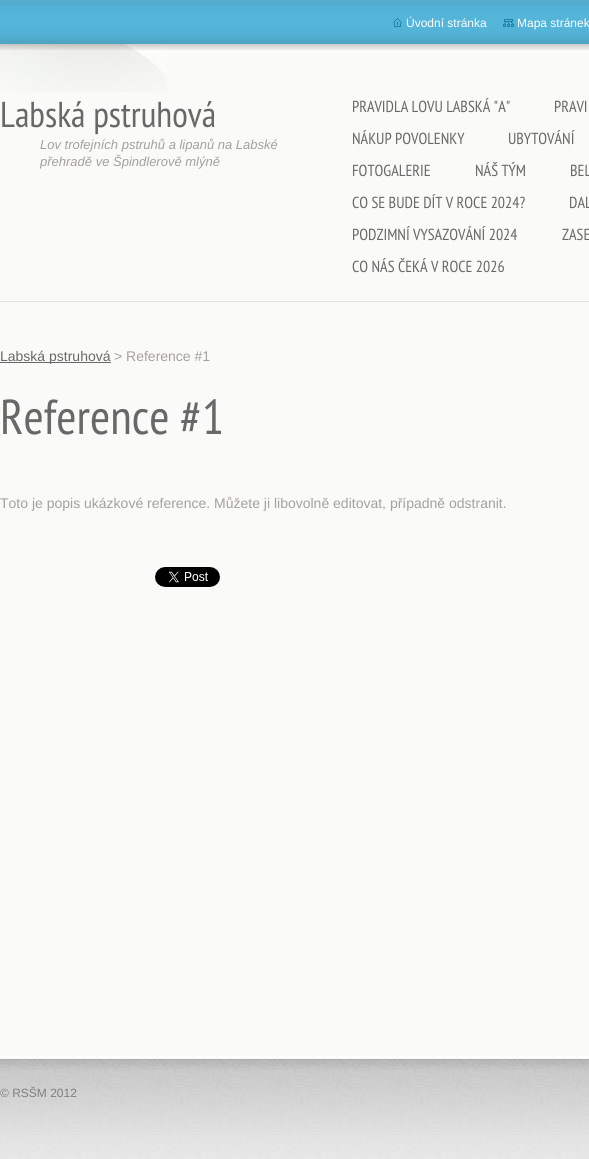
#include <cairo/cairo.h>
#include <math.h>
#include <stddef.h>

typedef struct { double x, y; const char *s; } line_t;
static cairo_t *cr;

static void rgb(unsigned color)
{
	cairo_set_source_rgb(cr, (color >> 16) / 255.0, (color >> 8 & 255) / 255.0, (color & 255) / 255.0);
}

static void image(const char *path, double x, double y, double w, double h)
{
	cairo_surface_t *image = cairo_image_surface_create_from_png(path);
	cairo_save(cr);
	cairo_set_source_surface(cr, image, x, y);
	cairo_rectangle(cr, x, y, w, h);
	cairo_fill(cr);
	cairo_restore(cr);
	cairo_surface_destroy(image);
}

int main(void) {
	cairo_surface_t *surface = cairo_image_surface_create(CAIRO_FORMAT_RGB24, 589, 1159);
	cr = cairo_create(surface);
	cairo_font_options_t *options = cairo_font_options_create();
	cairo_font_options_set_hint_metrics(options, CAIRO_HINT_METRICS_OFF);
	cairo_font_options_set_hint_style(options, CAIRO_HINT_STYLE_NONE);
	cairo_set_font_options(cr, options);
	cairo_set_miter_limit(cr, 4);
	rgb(0xfafaf8);
	cairo_paint(cr);
	image("img/1.png", 0, 44, 167, 48);
	rgb(0xe2e2e1);
	cairo_rectangle(cr, 0, 301, 589, 1);
	cairo_fill(cr);
	image("img/2.png", 0, 0, 589, 50);
	image("img/3.png", 393, 18, 9, 9);
	image("img/4.png", 503, 19, 11, 8);
	rgb(0x686868);
	cairo_rectangle(cr, 0, 362, 111, 1);
	cairo_fill(cr);
	image("img/5.png", 155, 567, 65, 20);
	image("img/6.png", 0, 1056, 589, 103);
	cairo_select_font_face(cr, "Liberation Sans", CAIRO_FONT_SLANT_NORMAL, CAIRO_FONT_WEIGHT_NORMAL);
	cairo_set_font_size(cr, 12);
	rgb(0xffffff);
	cairo_move_to(cr, 406, 27);
	cairo_show_text(cr, "Úvodní stránka");
	cairo_move_to(cr, 517, 27);
	cairo_show_text(cr, "Mapa stránek");
	cairo_select_font_face(cr, "PT Sans Narrow", CAIRO_FONT_SLANT_NORMAL, CAIRO_FONT_WEIGHT_NORMAL);
	cairo_set_font_size(cr, 36);
	rgb(0x686868);
	cairo_move_to(cr, 0, 127);
	cairo_show_text(cr, "Labská pstruhová");
	cairo_select_font_face(cr, "Liberation Sans", CAIRO_FONT_SLANT_ITALIC, CAIRO_FONT_WEIGHT_NORMAL);
	cairo_set_font_size(cr, 13);
	rgb(0xa3a1a1);
	cairo_move_to(cr, 40, 149);
	cairo_show_text(cr, "Lov trofejních pstruhů a lipanů na Labské");
	cairo_move_to(cr, 40, 166);
	cairo_show_text(cr, "přehradě ve Špindlerově mlýně");
	cairo_select_font_face(cr, "PT Sans Narrow", CAIRO_FONT_SLANT_NORMAL, CAIRO_FONT_WEIGHT_NORMAL);
	cairo_set_font_size(cr, 16);
	rgb(0x686868);
	{
		static const line_t items[] = {
			{352, 112, "PRAVIDLA LOVU LABSKÁ \"A\""},
			{554, 112, "PRAVI"},
			{352, 144, "NÁKUP POVOLENKY"},
			{508, 144, "UBYTOVÁNÍ"},
			{352, 176, "FOTOGALERIE"},
			{475, 176, "NÁŠ TÝM"},
			{570, 176, "BEL"},
			{352, 208, "CO SE BUDE DÍT V ROCE 2024?"},
			{569, 208, "DAL"},
			{352, 240, "PODZIMNÍ VYSAZOVÁNÍ 2024"},
			{562, 240, "ZASE"},
			{352, 272, "CO NÁS ČEKÁ V ROCE 2026"},
		};
		for (size_t i = 0; i < sizeof items / sizeof *items; i++) {
			cairo_move_to(cr, items[i].x, items[i].y);
			cairo_show_text(cr, items[i].s);
		}
	}
	cairo_select_font_face(cr, "Liberation Sans", CAIRO_FONT_SLANT_NORMAL, CAIRO_FONT_WEIGHT_NORMAL);
	cairo_set_font_size(cr, 14);
	cairo_move_to(cr, 0, 361);
	cairo_show_text(cr, "Labská pstruhová");
	rgb(0xa3a1a1);
	cairo_move_to(cr, 114, 361);
	cairo_show_text(cr, "> Reference #1");
	cairo_select_font_face(cr, "PT Sans Narrow", CAIRO_FONT_SLANT_NORMAL, CAIRO_FONT_WEIGHT_NORMAL);
	cairo_set_font_size(cr, 49);
	rgb(0x686868);
	cairo_move_to(cr, 0, 434);
	cairo_show_text(cr, "Reference #1");
	cairo_select_font_face(cr, "Liberation Sans", CAIRO_FONT_SLANT_NORMAL, CAIRO_FONT_WEIGHT_NORMAL);
	cairo_set_font_size(cr, 14);
	rgb(0xa3a1a1);
	cairo_move_to(cr, 0, 508);
	cairo_show_text(cr, "Toto je popis ukázkové reference. Můžete ji libovolně editovat, případně odstranit.");
	cairo_set_font_size(cr, 12);
	rgb(0x7f7f7f);
	cairo_move_to(cr, 0, 1097);
	cairo_show_text(cr, "© RSŠM 2012");
	cairo_surface_write_to_png(surface, "page.png");
	cairo_font_options_destroy(options);
	cairo_destroy(cr);
	cairo_surface_destroy(surface);
	return 0;
}
